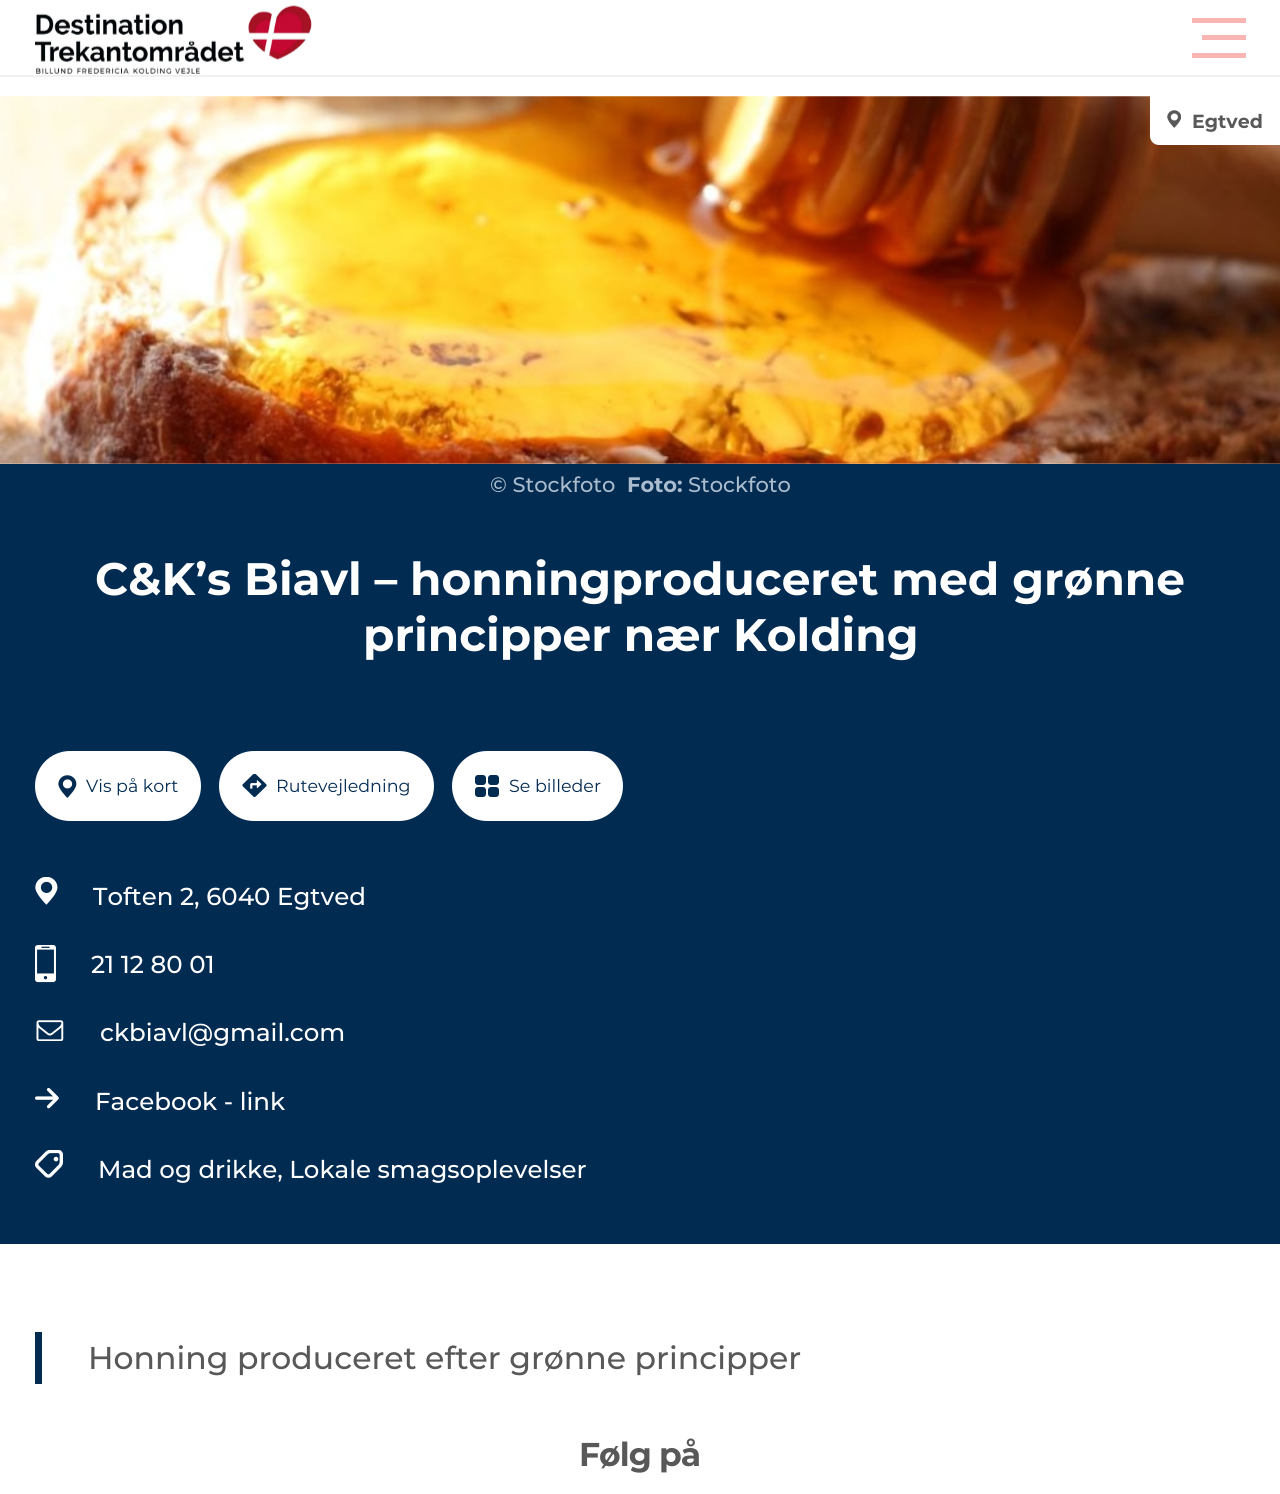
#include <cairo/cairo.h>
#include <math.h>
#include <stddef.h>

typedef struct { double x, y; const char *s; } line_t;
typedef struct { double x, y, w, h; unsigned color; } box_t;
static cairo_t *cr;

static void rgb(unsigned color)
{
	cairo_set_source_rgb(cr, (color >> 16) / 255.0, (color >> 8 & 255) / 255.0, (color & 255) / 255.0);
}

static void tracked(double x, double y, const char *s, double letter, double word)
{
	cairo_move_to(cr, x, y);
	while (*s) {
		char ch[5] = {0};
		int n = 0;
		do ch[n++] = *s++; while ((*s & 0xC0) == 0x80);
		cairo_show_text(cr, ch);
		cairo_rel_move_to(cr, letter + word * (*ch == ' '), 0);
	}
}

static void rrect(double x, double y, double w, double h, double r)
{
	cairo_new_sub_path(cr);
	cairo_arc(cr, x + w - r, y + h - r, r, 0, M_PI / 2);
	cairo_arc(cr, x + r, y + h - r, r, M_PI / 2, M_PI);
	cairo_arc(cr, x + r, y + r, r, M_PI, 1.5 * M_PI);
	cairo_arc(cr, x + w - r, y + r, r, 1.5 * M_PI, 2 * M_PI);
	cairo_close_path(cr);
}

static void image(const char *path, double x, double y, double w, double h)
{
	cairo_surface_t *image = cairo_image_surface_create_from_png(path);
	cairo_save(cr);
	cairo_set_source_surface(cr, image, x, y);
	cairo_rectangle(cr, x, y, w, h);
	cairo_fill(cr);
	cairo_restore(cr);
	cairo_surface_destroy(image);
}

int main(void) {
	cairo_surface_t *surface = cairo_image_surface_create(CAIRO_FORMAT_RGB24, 1280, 1494);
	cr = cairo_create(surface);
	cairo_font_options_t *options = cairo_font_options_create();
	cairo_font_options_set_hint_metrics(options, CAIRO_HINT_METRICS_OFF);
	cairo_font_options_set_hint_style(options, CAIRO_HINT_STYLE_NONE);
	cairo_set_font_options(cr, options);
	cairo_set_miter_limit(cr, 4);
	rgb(0xffffff);
	cairo_paint(cr);
	rgb(0xf0f1f3);
	cairo_rectangle(cr, 0, 75, 1280, 2);
	cairo_fill(cr);
	image("img/1.png", 35, 5, 277, 69);
	{
		static const box_t items[] = {
			{1192, 18, 54, 5, 0xf9b5b2},
			{1202, 35, 44, 5, 0xf9b5b2},
			{1192, 53, 54, 5, 0xf9b5b2},
		};
		for (size_t i = 0; i < sizeof items / sizeof *items; i++) {
			rgb(items[i].color);
			cairo_rectangle(cr, items[i].x, items[i].y, items[i].w, items[i].h);
			cairo_fill(cr);
		}
	}
	image("img/2.png", 0, 96, 1280, 368);
	rgb(0xffffff);
	cairo_new_path(cr);
	cairo_move_to(cr, 1150, 96);
	cairo_line_to(cr, 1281, 96);
	cairo_line_to(cr, 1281, 145);
	cairo_line_to(cr, 1159, 145);
	cairo_curve_to(cr, 1154, 145, 1150, 141, 1150, 136);
	cairo_close_path(cr);
	cairo_fill(cr);
	image("img/3.png", 1167, 110, 14, 18);
	rgb(0x022b52);
	cairo_rectangle(cr, 0, 464, 1280, 780);
	cairo_fill(cr);
	rgb(0xffffff);
	rrect(35, 751, 166, 70, 35);
	cairo_fill(cr);
	image("img/4.png", 58, 775, 19, 23);
	rrect(219, 751, 215, 70, 35);
	cairo_fill(cr);
	image("img/5.png", 242, 774, 25, 23);
	rrect(452, 751, 171, 70, 35);
	cairo_fill(cr);
	rgb(0x022b52);
	rrect(488, 775, 11, 10, 3);
	cairo_fill(cr);
	rrect(488, 787, 11, 10, 3);
	cairo_fill(cr);
	rrect(475, 775, 11, 10, 3);
	cairo_fill(cr);
	rrect(475, 787, 11, 10, 3);
	cairo_fill(cr);
	image("img/6.png", 35, 877, 23, 28);
	image("img/7.png", 35, 945, 21, 38);
	image("img/8.png", 36, 1020, 28, 21);
	image("img/9.png", 35, 1087, 24, 22);
	image("img/10.png", 35, 1150, 28, 28);
	cairo_rectangle(cr, 35, 1332, 7, 52);
	cairo_fill(cr);
	cairo_select_font_face(cr, "Montserrat", CAIRO_FONT_SLANT_NORMAL, CAIRO_FONT_WEIGHT_BOLD);
	cairo_set_font_size(cr, 19);
	rgb(0x585858);
	cairo_move_to(cr, 1192, 128);
	cairo_show_text(cr, "Egtved");
	cairo_select_font_face(cr, "Montserrat Medium", CAIRO_FONT_SLANT_NORMAL, CAIRO_FONT_WEIGHT_NORMAL);
	cairo_set_font_size(cr, 21);
	rgb(0xaabccd);
	cairo_move_to(cr, 490, 492);
	cairo_show_text(cr, "© Stockfoto");
	cairo_select_font_face(cr, "Montserrat", CAIRO_FONT_SLANT_NORMAL, CAIRO_FONT_WEIGHT_BOLD);
	cairo_move_to(cr, 627, 492);
	cairo_show_text(cr, "Foto:");
	cairo_select_font_face(cr, "Montserrat Medium", CAIRO_FONT_SLANT_NORMAL, CAIRO_FONT_WEIGHT_NORMAL);
	cairo_move_to(cr, 688, 492);
	cairo_show_text(cr, "Stockfoto");
	cairo_select_font_face(cr, "Montserrat", CAIRO_FONT_SLANT_NORMAL, CAIRO_FONT_WEIGHT_BOLD);
	cairo_set_font_size(cr, 45.5);
	rgb(0xffffff);
	cairo_move_to(cr, 95, 595);
	cairo_show_text(cr, "C&K’s Biavl – honningproduceret med grønne");
	cairo_move_to(cr, 363, 651);
	cairo_show_text(cr, "principper nær Kolding");
	cairo_select_font_face(cr, "Montserrat", CAIRO_FONT_SLANT_NORMAL, CAIRO_FONT_WEIGHT_NORMAL);
	cairo_set_font_size(cr, 17.5);
	rgb(0x022b52);
	{
		static const line_t items[] = {
			{86, 792, "Vis på kort"},
			{276, 792, "Rutevejledning"},
			{509, 792, "Se billeder"},
		};
		for (size_t i = 0; i < sizeof items / sizeof *items; i++) {
			cairo_move_to(cr, items[i].x, items[i].y);
			cairo_show_text(cr, items[i].s);
		}
	}
	cairo_select_font_face(cr, "Montserrat Medium", CAIRO_FONT_SLANT_NORMAL, CAIRO_FONT_WEIGHT_NORMAL);
	cairo_set_font_size(cr, 24.5);
	rgb(0xffffff);
	{
		static const line_t items[] = {
			{93, 905, "Toften 2, 6040 Egtved"},
			{91, 973, "21 12 80 01"},
			{100, 1041, "ckbiavl@gmail.com"},
			{95, 1110, "Facebook - link"},
			{98, 1178, "Mad og drikke, Lokale smagsoplevelser"},
		};
		for (size_t i = 0; i < sizeof items / sizeof *items; i++) {
			cairo_move_to(cr, items[i].x, items[i].y);
			cairo_show_text(cr, items[i].s);
		}
	}
	cairo_set_font_size(cr, 31.5);
	rgb(0x585858);
	cairo_move_to(cr, 88, 1369);
	cairo_show_text(cr, "Honning produceret efter grønne principper");
	cairo_select_font_face(cr, "Montserrat", CAIRO_FONT_SLANT_NORMAL, CAIRO_FONT_WEIGHT_BOLD);
	cairo_set_font_size(cr, 33);
	tracked(579, 1466, "Følg på", -1, 0);
	cairo_surface_write_to_png(surface, "page.png");
	cairo_font_options_destroy(options);
	cairo_destroy(cr);
	cairo_surface_destroy(surface);
	return 0;
}
